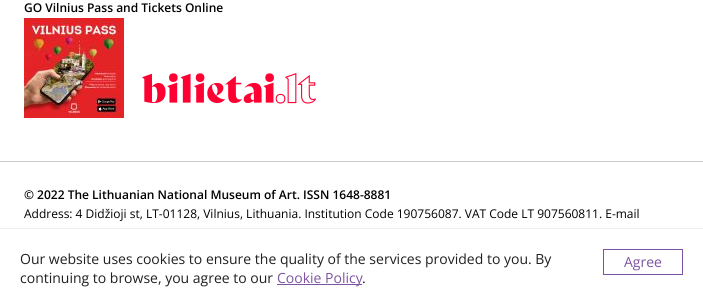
#include <cairo/cairo.h>
#include <math.h>
#include <stddef.h>

typedef struct { double x, y, w, h; unsigned color; } box_t;
static cairo_t *cr;

static void rgb(unsigned color)
{
	cairo_set_source_rgb(cr, (color >> 16) / 255.0, (color >> 8 & 255) / 255.0, (color & 255) / 255.0);
}

static void image(const char *path, double x, double y, double w, double h)
{
	cairo_surface_t *image = cairo_image_surface_create_from_png(path);
	cairo_save(cr);
	cairo_set_source_surface(cr, image, x, y);
	cairo_rectangle(cr, x, y, w, h);
	cairo_fill(cr);
	cairo_restore(cr);
	cairo_surface_destroy(image);
}

int main(void) {
	cairo_surface_t *surface = cairo_image_surface_create(CAIRO_FORMAT_RGB24, 703, 307);
	cr = cairo_create(surface);
	cairo_font_options_t *options = cairo_font_options_create();
	cairo_font_options_set_hint_metrics(options, CAIRO_HINT_METRICS_OFF);
	cairo_font_options_set_hint_style(options, CAIRO_HINT_STYLE_NONE);
	cairo_set_font_options(cr, options);
	cairo_set_miter_limit(cr, 4);
	rgb(0xffffff);
	cairo_paint(cr);
	image("img/1.png", 24, 18, 100, 100);
	image("img/2.png", 142, 73, 174, 31);
	{
		static const box_t items[] = {
			{0, 161, 703, 1, 0xc9cacc},
			{0, 228, 703, 1, 0xeeeeee},
			{277, 284, 85, 1, 0x7d54a2},
		};
		for (size_t i = 0; i < sizeof items / sizeof *items; i++) {
			rgb(items[i].color);
			cairo_rectangle(cr, items[i].x, items[i].y, items[i].w, items[i].h);
			cairo_fill(cr);
		}
	}
	cairo_rectangle(cr, 603.5, 249.5, 79, 25);
	cairo_set_line_width(cr, 1);
	cairo_stroke(cr);
	cairo_select_font_face(cr, "Open Sans SemiBold", CAIRO_FONT_SLANT_NORMAL, CAIRO_FONT_WEIGHT_NORMAL);
	cairo_set_font_size(cr, 12);
	rgb(0x000000);
	cairo_move_to(cr, 24, 12);
	cairo_show_text(cr, "GO Vilnius Pass and Tickets Online");
	cairo_move_to(cr, 24, 199);
	cairo_show_text(cr, "© 2022 The Lithuanian National Museum of Art. ISSN 1648-8881");
	cairo_select_font_face(cr, "Open Sans", CAIRO_FONT_SLANT_NORMAL, CAIRO_FONT_WEIGHT_NORMAL);
	cairo_move_to(cr, 24, 218);
	cairo_show_text(cr, "Address: 4 Didžioji st, LT-01128, Vilnius, Lithuania. Institution Code 190756087. VAT Code LT 907560811. E-mail");
	cairo_set_font_size(cr, 14);
	rgb(0x202020);
	cairo_move_to(cr, 20, 264);
	cairo_show_text(cr, "Our website uses cookies to ensure the quality of the services provided to you. By");
	cairo_move_to(cr, 20, 283);
	cairo_show_text(cr, "continuing to browse, you agree to our");
	rgb(0x7d54a2);
	cairo_move_to(cr, 277, 283);
	cairo_show_text(cr, "Cookie Policy");
	rgb(0x202020);
	cairo_move_to(cr, 362, 283);
	cairo_show_text(cr, ".");
	rgb(0x7d54a2);
	cairo_move_to(cr, 624, 267);
	cairo_show_text(cr, "Agree");
	cairo_surface_write_to_png(surface, "page.png");
	cairo_font_options_destroy(options);
	cairo_destroy(cr);
	cairo_surface_destroy(surface);
	return 0;
}
